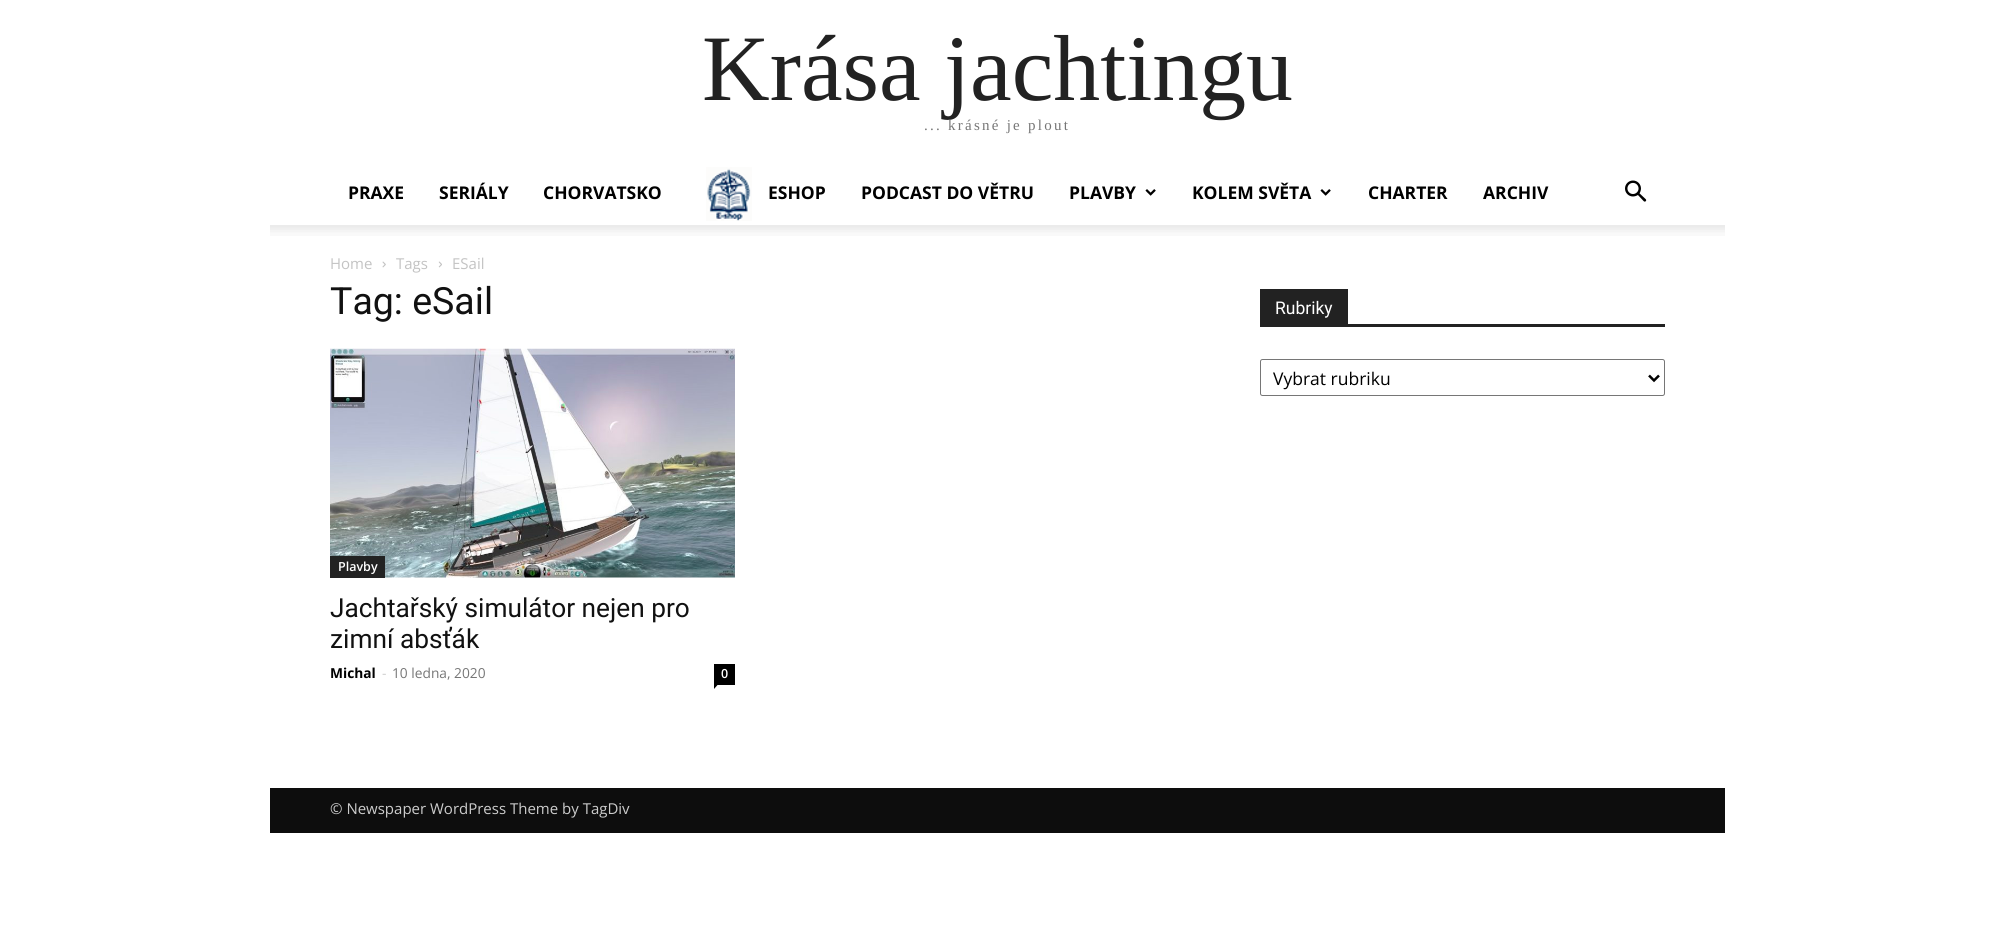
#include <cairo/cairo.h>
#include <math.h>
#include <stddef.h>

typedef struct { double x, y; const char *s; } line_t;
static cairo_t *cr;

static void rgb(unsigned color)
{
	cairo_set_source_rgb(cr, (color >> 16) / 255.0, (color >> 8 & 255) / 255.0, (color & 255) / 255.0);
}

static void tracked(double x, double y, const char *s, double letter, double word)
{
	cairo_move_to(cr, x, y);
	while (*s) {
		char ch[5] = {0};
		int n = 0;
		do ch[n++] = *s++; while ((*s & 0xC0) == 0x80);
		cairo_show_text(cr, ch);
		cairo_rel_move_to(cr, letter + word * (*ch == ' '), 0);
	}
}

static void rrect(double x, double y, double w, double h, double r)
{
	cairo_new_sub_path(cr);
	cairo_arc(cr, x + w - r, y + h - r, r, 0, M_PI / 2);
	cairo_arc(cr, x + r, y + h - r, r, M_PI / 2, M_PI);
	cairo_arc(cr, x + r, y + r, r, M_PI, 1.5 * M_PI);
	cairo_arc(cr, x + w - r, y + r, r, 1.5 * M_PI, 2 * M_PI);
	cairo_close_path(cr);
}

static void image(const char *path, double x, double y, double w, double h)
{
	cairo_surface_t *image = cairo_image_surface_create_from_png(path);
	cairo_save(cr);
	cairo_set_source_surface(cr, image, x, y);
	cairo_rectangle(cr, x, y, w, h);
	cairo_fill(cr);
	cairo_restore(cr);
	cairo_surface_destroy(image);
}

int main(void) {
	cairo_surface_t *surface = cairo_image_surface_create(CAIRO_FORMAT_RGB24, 1994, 949);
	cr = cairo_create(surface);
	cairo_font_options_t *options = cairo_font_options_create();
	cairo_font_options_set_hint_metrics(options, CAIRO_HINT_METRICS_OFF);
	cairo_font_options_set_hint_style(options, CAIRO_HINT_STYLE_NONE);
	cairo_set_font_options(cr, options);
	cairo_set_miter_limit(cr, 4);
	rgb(0xffffff);
	cairo_paint(cr);
	image("img/1.png", 706, 167, 46, 54);
	image("img/2.png", 1145, 189, 11, 7);
	image("img/2.png", 1320, 189, 11, 7);
	image("img/3.png", 1625, 180, 22, 22);
	image("img/4.png", 270, 225, 1455, 11);
	image("img/5.png", 382, 261, 4, 7);
	image("img/6.png", 438, 261, 4, 7);
	image("img/7.png", 330, 348, 405, 230);
	rgb(0x222222);
	cairo_rectangle(cr, 330, 556, 55, 22);
	cairo_fill(cr);
	rgb(0x000000);
	cairo_rectangle(cr, 714, 664, 21, 21);
	cairo_fill(cr);
	cairo_new_path(cr);
	cairo_move_to(cr, 714, 685);
	cairo_line_to(cr, 717.5, 685);
	cairo_line_to(cr, 714, 689);
	cairo_close_path(cr);
	cairo_fill(cr);
	rgb(0x222222);
	cairo_rectangle(cr, 1260, 324, 405, 3);
	cairo_fill(cr);
	cairo_rectangle(cr, 1260, 289, 88, 35);
	cairo_fill(cr);
	rrect(1260.5, 359.5, 404, 36, 2);
	rgb(0x767676);
	cairo_set_line_width(cr, 1);
	cairo_stroke(cr);
	cairo_new_path(cr);
	cairo_move_to(cr, 1649, 375.5);
	cairo_line_to(cr, 1654, 380.5);
	cairo_line_to(cr, 1659, 375.5);
	rgb(0x000000);
	cairo_set_line_width(cr, 2.5);
	cairo_stroke(cr);
	rgb(0x0d0d0d);
	cairo_rectangle(cr, 270, 788, 1455, 45);
	cairo_fill(cr);
	cairo_select_font_face(cr, "Liberation Serif", CAIRO_FONT_SLANT_NORMAL, CAIRO_FONT_WEIGHT_NORMAL);
	cairo_set_font_size(cr, 93.75);
	rgb(0x222222);
	cairo_move_to(cr, 702, 100);
	cairo_show_text(cr, "Krása jachtingu");
	cairo_set_font_size(cr, 15);
	rgb(0x767676);
	tracked(924, 130, "... krásné je plout", 2.25, 0);
	cairo_select_font_face(cr, "Open Sans", CAIRO_FONT_SLANT_NORMAL, CAIRO_FONT_WEIGHT_BOLD);
	cairo_set_font_size(cr, 17.5);
	rgb(0x000000);
	{
		static const line_t items[] = {
			{348, 199, "PRAXE"},
			{439, 199, "SERIÁLY"},
			{543, 199, "CHORVATSKO"},
			{768, 199, "ESHOP"},
			{861, 199, "PODCAST DO VĚTRU"},
			{1069, 199, "PLAVBY"},
			{1192, 199, "KOLEM SVĚTA"},
			{1368, 199, "CHARTER"},
			{1483, 199, "ARCHIV"},
		};
		for (size_t i = 0; i < sizeof items / sizeof *items; i++) {
			cairo_move_to(cr, items[i].x, items[i].y);
			cairo_show_text(cr, items[i].s);
		}
	}
	cairo_select_font_face(cr, "Open Sans", CAIRO_FONT_SLANT_NORMAL, CAIRO_FONT_WEIGHT_NORMAL);
	cairo_set_font_size(cr, 15);
	rgb(0xc3c3c3);
	{
		static const line_t items[] = {
			{330, 269, "Home"},
			{396, 269, "Tags"},
			{452, 269, "ESail"},
		};
		for (size_t i = 0; i < sizeof items / sizeof *items; i++) {
			cairo_move_to(cr, items[i].x, items[i].y);
			cairo_show_text(cr, items[i].s);
		}
	}
	cairo_select_font_face(cr, "Roboto", CAIRO_FONT_SLANT_NORMAL, CAIRO_FONT_WEIGHT_NORMAL);
	cairo_set_font_size(cr, 37.5);
	rgb(0x111111);
	cairo_move_to(cr, 330, 314);
	cairo_show_text(cr, "Tag: eSail");
	cairo_select_font_face(cr, "Open Sans SemiBold", CAIRO_FONT_SLANT_NORMAL, CAIRO_FONT_WEIGHT_NORMAL);
	cairo_set_font_size(cr, 12.5);
	rgb(0xffffff);
	cairo_move_to(cr, 338, 571);
	cairo_show_text(cr, "Plavby");
	cairo_select_font_face(cr, "Roboto", CAIRO_FONT_SLANT_NORMAL, CAIRO_FONT_WEIGHT_NORMAL);
	cairo_set_font_size(cr, 26.25);
	rgb(0x111111);
	cairo_move_to(cr, 330, 617);
	cairo_show_text(cr, "Jachtařský simulátor nejen pro");
	cairo_move_to(cr, 330, 648);
	cairo_show_text(cr, "zimní absťák");
	cairo_select_font_face(cr, "Open Sans", CAIRO_FONT_SLANT_NORMAL, CAIRO_FONT_WEIGHT_BOLD);
	cairo_set_font_size(cr, 13.75);
	rgb(0x000000);
	cairo_move_to(cr, 330, 678);
	cairo_show_text(cr, "Michal");
	cairo_select_font_face(cr, "Open Sans", CAIRO_FONT_SLANT_NORMAL, CAIRO_FONT_WEIGHT_NORMAL);
	rgb(0xcccccc);
	cairo_move_to(cr, 382, 678);
	cairo_show_text(cr, "-");
	rgb(0x767676);
	cairo_move_to(cr, 392, 678);
	cairo_show_text(cr, "10 ledna, 2020");
	cairo_select_font_face(cr, "Open Sans SemiBold", CAIRO_FONT_SLANT_NORMAL, CAIRO_FONT_WEIGHT_NORMAL);
	cairo_set_font_size(cr, 12.5);
	rgb(0xffffff);
	cairo_move_to(cr, 721, 678);
	cairo_show_text(cr, "0");
	cairo_select_font_face(cr, "Roboto", CAIRO_FONT_SLANT_NORMAL, CAIRO_FONT_WEIGHT_NORMAL);
	cairo_set_font_size(cr, 17.5);
	cairo_move_to(cr, 1275, 314);
	cairo_show_text(cr, "Rubriky");
	cairo_select_font_face(cr, "Open Sans", CAIRO_FONT_SLANT_NORMAL, CAIRO_FONT_WEIGHT_NORMAL);
	rgb(0x000000);
	cairo_move_to(cr, 1273, 385);
	cairo_show_text(cr, "Vybrat rubriku");
	cairo_set_font_size(cr, 15);
	rgb(0xcccccc);
	cairo_move_to(cr, 330, 814);
	cairo_show_text(cr, "© Newspaper WordPress Theme by TagDiv");
	cairo_surface_write_to_png(surface, "page.png");
	cairo_font_options_destroy(options);
	cairo_destroy(cr);
	cairo_surface_destroy(surface);
	return 0;
}
